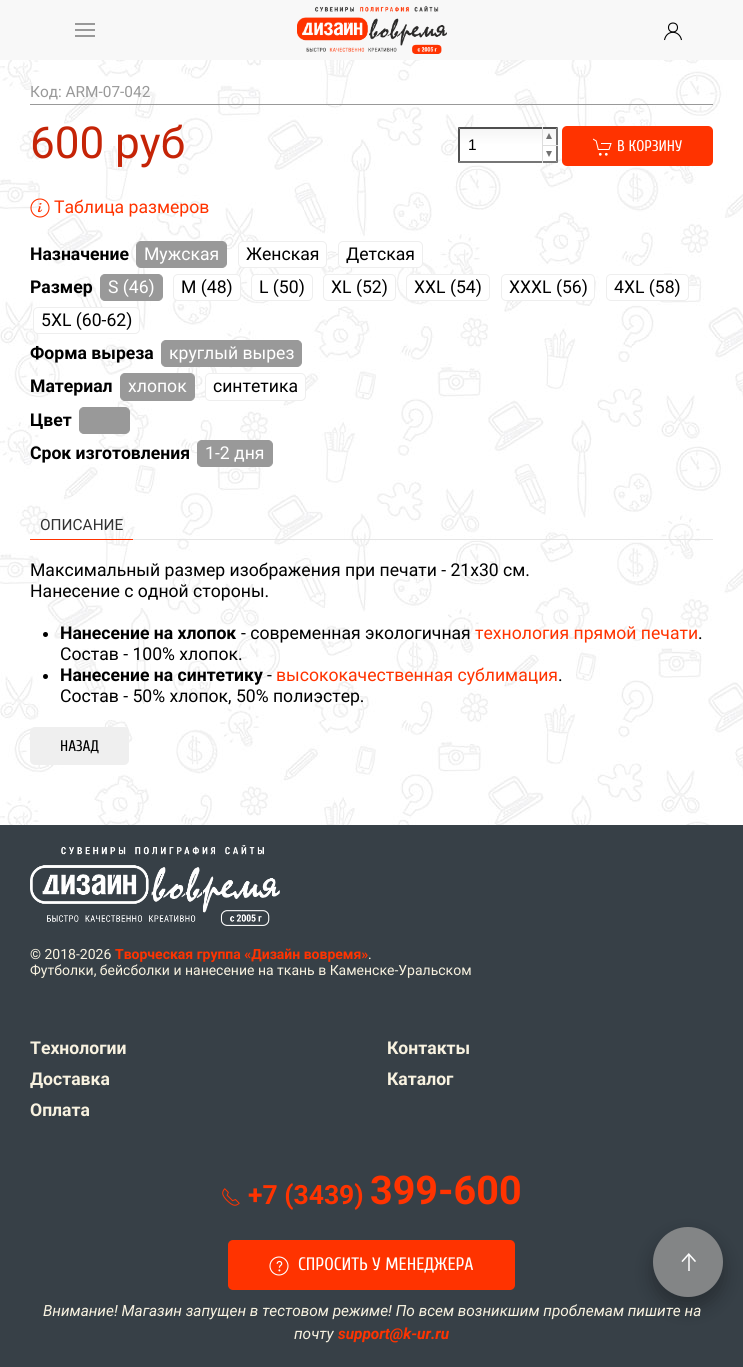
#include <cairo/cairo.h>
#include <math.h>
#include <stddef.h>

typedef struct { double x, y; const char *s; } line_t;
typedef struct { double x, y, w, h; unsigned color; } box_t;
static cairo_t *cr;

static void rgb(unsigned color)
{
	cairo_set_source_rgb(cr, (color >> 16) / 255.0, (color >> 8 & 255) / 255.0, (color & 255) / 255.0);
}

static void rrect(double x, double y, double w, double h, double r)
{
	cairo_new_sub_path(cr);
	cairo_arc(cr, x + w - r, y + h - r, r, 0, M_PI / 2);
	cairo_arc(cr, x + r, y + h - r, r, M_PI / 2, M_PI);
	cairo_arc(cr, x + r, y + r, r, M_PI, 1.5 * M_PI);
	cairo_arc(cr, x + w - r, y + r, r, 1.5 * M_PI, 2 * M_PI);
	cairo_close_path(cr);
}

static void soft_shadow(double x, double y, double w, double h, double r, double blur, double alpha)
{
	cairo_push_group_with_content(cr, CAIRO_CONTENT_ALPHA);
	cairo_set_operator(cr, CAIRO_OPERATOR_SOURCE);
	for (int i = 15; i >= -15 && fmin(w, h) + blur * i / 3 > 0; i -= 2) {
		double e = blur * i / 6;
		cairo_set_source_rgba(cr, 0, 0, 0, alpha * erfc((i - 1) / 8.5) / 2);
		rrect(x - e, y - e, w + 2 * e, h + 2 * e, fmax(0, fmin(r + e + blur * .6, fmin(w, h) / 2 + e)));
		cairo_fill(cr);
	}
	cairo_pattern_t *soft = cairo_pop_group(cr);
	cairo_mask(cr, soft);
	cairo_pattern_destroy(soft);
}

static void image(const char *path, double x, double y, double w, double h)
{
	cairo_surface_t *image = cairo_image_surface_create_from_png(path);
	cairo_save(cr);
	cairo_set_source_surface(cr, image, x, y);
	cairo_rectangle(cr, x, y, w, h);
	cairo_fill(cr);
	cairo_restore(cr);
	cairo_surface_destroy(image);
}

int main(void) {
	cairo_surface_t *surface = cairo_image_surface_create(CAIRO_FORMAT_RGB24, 743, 1367);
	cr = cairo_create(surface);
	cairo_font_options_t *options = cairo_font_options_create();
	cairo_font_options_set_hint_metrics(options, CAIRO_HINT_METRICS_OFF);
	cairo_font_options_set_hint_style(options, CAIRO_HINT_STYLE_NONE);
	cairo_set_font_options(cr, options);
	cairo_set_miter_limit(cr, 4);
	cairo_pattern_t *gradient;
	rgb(0xffffff);
	cairo_paint(cr);
	image("img/1.png", 0, 60, 743, 765);
	{
		static const box_t items[] = {
			{0, 0, 743, 60, 0xf8f8f8},
			{75, 29, 20, 2, 0x999999},
			{75, 23, 20, 2, 0x999999},
			{75, 35, 20, 2, 0x999999},
		};
		for (size_t i = 0; i < sizeof items / sizeof *items; i++) {
			rgb(items[i].color);
			cairo_rectangle(cr, items[i].x, items[i].y, items[i].w, items[i].h);
			cairo_fill(cr);
		}
	}
	image("img/2.png", 297, 6, 150, 48);
	cairo_arc(cr, 673, 27.5, 4.5, 0, 2 * M_PI);
	rgb(0x000000);
	cairo_set_line_width(cr, 1.1);
	cairo_stroke(cr);
	cairo_new_path(cr);
	cairo_move_to(cr, 664.5, 40);
	cairo_curve_to(cr, 666.5, 29.5, 679.5, 30, 681.5, 40);
	cairo_stroke(cr);
	rgb(0x999999);
	cairo_rectangle(cr, 30, 104, 683, 1);
	cairo_fill(cr);
	gradient = cairo_pattern_create_linear(508, 161, 508, 129);
	cairo_pattern_add_color_stop_rgba(gradient, 0.5, 1, 1, 1, 1);
	cairo_pattern_add_color_stop_rgba(gradient, 1, 0.961, 0.961, 0.961, 1);
	cairo_set_source(cr, gradient);
	cairo_pattern_destroy(gradient);
	cairo_rectangle(cr, 460, 129, 96, 32);
	cairo_fill(cr);
	rgb(0x4f4f4f);
	cairo_new_path(cr);
	cairo_move_to(cr, 458, 127);
	cairo_line_to(cr, 558, 127);
	cairo_line_to(cr, 556, 129);
	cairo_line_to(cr, 460, 129);
	cairo_close_path(cr);
	cairo_fill(cr);
	rgb(0x767676);
	cairo_new_path(cr);
	cairo_move_to(cr, 558, 127);
	cairo_line_to(cr, 558, 163);
	cairo_line_to(cr, 556, 161);
	cairo_line_to(cr, 556, 129);
	cairo_close_path(cr);
	cairo_fill(cr);
	cairo_new_path(cr);
	cairo_move_to(cr, 558, 163);
	cairo_line_to(cr, 458, 163);
	cairo_line_to(cr, 460, 161);
	cairo_line_to(cr, 556, 161);
	cairo_close_path(cr);
	cairo_fill(cr);
	rgb(0x4f4f4f);
	cairo_new_path(cr);
	cairo_move_to(cr, 458, 163);
	cairo_line_to(cr, 458, 127);
	cairo_line_to(cr, 460, 129);
	cairo_line_to(cr, 460, 161);
	cairo_close_path(cr);
	cairo_fill(cr);
	rgb(0xdddddd);
	cairo_rectangle(cr, 542, 145, 16, 1);
	cairo_fill(cr);
	cairo_rectangle(cr, 542, 127, 1, 36);
	cairo_fill(cr);
	rgb(0x717171);
	cairo_new_path(cr);
	cairo_move_to(cr, 552, 139);
	cairo_line_to(cr, 546, 139);
	cairo_line_to(cr, 549, 133);
	cairo_close_path(cr);
	cairo_move_to(cr, 546, 151);
	cairo_line_to(cr, 552, 151);
	cairo_line_to(cr, 549, 157);
	cairo_close_path(cr);
	cairo_fill(cr);
	rgb(0xff3300);
	rrect(562, 126, 151, 40, 5);
	cairo_fill(cr);
	image("img/3.png", 593, 138, 19, 18);
	image("img/4.png", 30, 198, 20, 20);
	rgb(0x999999);
	rrect(136.5, 241.5, 90, 26, 4.5);
	cairo_fill_preserve(cr);
	cairo_set_line_width(cr, 1);
	cairo_stroke(cr);
	rgb(0xffffff);
	rrect(238.5, 241.5, 88, 26, 4.5);
	cairo_fill_preserve(cr);
	rgb(0xeeeeee);
	cairo_stroke(cr);
	rgb(0xffffff);
	rrect(338.5, 241.5, 84, 26, 4.5);
	cairo_fill_preserve(cr);
	rgb(0xeeeeee);
	cairo_stroke(cr);
	rgb(0x999999);
	rrect(100.5, 274.5, 62, 26, 4.5);
	cairo_fill_preserve(cr);
	cairo_stroke(cr);
	rgb(0xffffff);
	rrect(173.5, 274.5, 67, 26, 4.5);
	cairo_fill_preserve(cr);
	rgb(0xeeeeee);
	cairo_stroke(cr);
	rgb(0xffffff);
	rrect(251.5, 274.5, 61, 26, 4.5);
	cairo_fill_preserve(cr);
	rgb(0xeeeeee);
	cairo_stroke(cr);
	rgb(0xffffff);
	rrect(323.5, 274.5, 72, 26, 4.5);
	cairo_fill_preserve(cr);
	rgb(0xeeeeee);
	cairo_stroke(cr);
	rgb(0xffffff);
	rrect(406.5, 274.5, 83, 26, 4.5);
	cairo_fill_preserve(cr);
	rgb(0xeeeeee);
	cairo_stroke(cr);
	rgb(0xffffff);
	rrect(501.5, 274.5, 93, 26, 4.5);
	cairo_fill_preserve(cr);
	rgb(0xeeeeee);
	cairo_stroke(cr);
	rgb(0xffffff);
	rrect(606.5, 274.5, 82, 26, 4.5);
	cairo_fill_preserve(cr);
	rgb(0xeeeeee);
	cairo_stroke(cr);
	rgb(0xffffff);
	rrect(33.5, 307.5, 106, 26, 4.5);
	cairo_fill_preserve(cr);
	rgb(0xeeeeee);
	cairo_stroke(cr);
	rgb(0x999999);
	rrect(161.5, 340.5, 140, 26, 4.5);
	cairo_fill_preserve(cr);
	cairo_stroke(cr);
	rrect(120.5, 373.5, 74, 27, 4.5);
	cairo_fill_preserve(cr);
	cairo_stroke(cr);
	rgb(0xffffff);
	rrect(205.5, 373.5, 100, 27, 4.5);
	cairo_fill_preserve(cr);
	rgb(0xeeeeee);
	cairo_stroke(cr);
	rgb(0x999999);
	rrect(79.5, 407.5, 50, 26, 4.5);
	cairo_fill_preserve(cr);
	cairo_stroke(cr);
	rrect(197.5, 440.5, 75, 26, 4.5);
	cairo_fill_preserve(cr);
	cairo_stroke(cr);
	rgb(0xff3300);
	cairo_rectangle(cr, 30, 539, 103, 1);
	cairo_fill(cr);
	rgb(0xe5e5e5);
	cairo_rectangle(cr, 133, 539, 580, 1);
	cairo_fill(cr);
	rgb(0x000000);
	cairo_arc(cr, 45.5, 634.5, 2.5, 0, 2 * M_PI);
	cairo_fill(cr);
	cairo_arc(cr, 45.5, 676.5, 2.5, 0, 2 * M_PI);
	cairo_fill(cr);
	rgb(0xefefef);
	rrect(30, 727, 99, 38, 5);
	cairo_fill(cr);
	rgb(0x374047);
	cairo_rectangle(cr, 0, 825, 743, 542);
	cairo_fill(cr);
	image("img/5.png", 30, 845, 250, 81);
	image("img/6.png", 222, 1188, 18, 18);
	rgb(0xff3300);
	rrect(228, 1240, 287, 50, 5);
	cairo_fill(cr);
	image("img/7.png", 269, 1256, 20, 20);
	cairo_save(cr);
	cairo_set_fill_rule(cr, CAIRO_FILL_RULE_EVEN_ODD);
	cairo_new_path(cr);
	cairo_move_to(cr, 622, 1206);
	cairo_line_to(cr, 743, 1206);
	cairo_line_to(cr, 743, 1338);
	cairo_line_to(cr, 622, 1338);
	cairo_close_path(cr);
	cairo_move_to(cr, 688, 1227);
	cairo_curve_to(cr, 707.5, 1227, 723, 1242.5, 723, 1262);
	cairo_curve_to(cr, 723, 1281.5, 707.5, 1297, 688, 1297);
	cairo_curve_to(cr, 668.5, 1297, 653, 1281.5, 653, 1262);
	cairo_curve_to(cr, 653, 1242.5, 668.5, 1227, 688, 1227);
	cairo_close_path(cr);
	cairo_clip(cr);
	rgb(0x000000);
	soft_shadow(653, 1237, 70, 70, 35, 10, 0.3);
	cairo_restore(cr);
	cairo_set_source_rgba(cr, 0.588, 0.588, 0.588, 0.8);
	cairo_arc(cr, 688, 1262, 35, 0, 2 * M_PI);
	cairo_fill(cr);
	image("img/8.png", 681, 1253, 15, 18);
	cairo_select_font_face(cr, "Roboto", CAIRO_FONT_SLANT_NORMAL, CAIRO_FONT_WEIGHT_NORMAL);
	cairo_set_font_size(cr, 15.4);
	rgb(0x999999);
	cairo_move_to(cr, 30, 97);
	cairo_show_text(cr, "Код: ARM-07-042");
	cairo_set_font_size(cr, 44);
	rgb(0xc52407);
	cairo_move_to(cr, 30, 158);
	cairo_show_text(cr, "600 руб");
	cairo_select_font_face(cr, "Liberation Sans", CAIRO_FONT_SLANT_NORMAL, CAIRO_FONT_WEIGHT_NORMAL);
	cairo_set_font_size(cr, 15.4);
	rgb(0x000000);
	cairo_move_to(cr, 468, 150);
	cairo_show_text(cr, "1");
	cairo_select_font_face(cr, "Cuprum", CAIRO_FONT_SLANT_NORMAL, CAIRO_FONT_WEIGHT_NORMAL);
	rgb(0xffffff);
	cairo_move_to(cr, 617, 151);
	cairo_show_text(cr, "В КОРЗИНУ");
	cairo_select_font_face(cr, "Roboto", CAIRO_FONT_SLANT_NORMAL, CAIRO_FONT_WEIGHT_NORMAL);
	cairo_set_font_size(cr, 17.6);
	rgb(0xff3300);
	cairo_move_to(cr, 54, 213);
	cairo_show_text(cr, "Таблица размеров");
	cairo_select_font_face(cr, "Roboto", CAIRO_FONT_SLANT_NORMAL, CAIRO_FONT_WEIGHT_BOLD);
	rgb(0x000000);
	cairo_move_to(cr, 30, 260);
	cairo_show_text(cr, "Назначение");
	cairo_select_font_face(cr, "Roboto", CAIRO_FONT_SLANT_NORMAL, CAIRO_FONT_WEIGHT_NORMAL);
	rgb(0xffffff);
	cairo_move_to(cr, 144, 260);
	cairo_show_text(cr, "Мужская");
	rgb(0x000000);
	cairo_move_to(cr, 246, 260);
	cairo_show_text(cr, "Женская");
	cairo_move_to(cr, 346, 260);
	cairo_show_text(cr, "Детская");
	rgb(0xffffff);
	cairo_move_to(cr, 108, 293);
	cairo_show_text(cr, "S (46)");
	rgb(0x000000);
	{
		static const line_t items[] = {
			{181, 293, "M (48)"},
			{259, 293, "L (50)"},
			{331, 293, "XL (52)"},
			{414, 293, "XXL (54)"},
			{509, 293, "XXXL (56)"},
			{614, 293, "4XL (58)"},
			{41, 326, "5XL (60-62)"},
		};
		for (size_t i = 0; i < sizeof items / sizeof *items; i++) {
			cairo_move_to(cr, items[i].x, items[i].y);
			cairo_show_text(cr, items[i].s);
		}
	}
	cairo_select_font_face(cr, "Roboto", CAIRO_FONT_SLANT_NORMAL, CAIRO_FONT_WEIGHT_BOLD);
	cairo_move_to(cr, 30, 293);
	cairo_show_text(cr, "Размер");
	cairo_move_to(cr, 30, 359);
	cairo_show_text(cr, "Форма выреза");
	cairo_select_font_face(cr, "Roboto", CAIRO_FONT_SLANT_NORMAL, CAIRO_FONT_WEIGHT_NORMAL);
	rgb(0xffffff);
	cairo_move_to(cr, 169, 359);
	cairo_show_text(cr, "круглый вырез");
	cairo_select_font_face(cr, "Roboto", CAIRO_FONT_SLANT_NORMAL, CAIRO_FONT_WEIGHT_BOLD);
	rgb(0x000000);
	cairo_move_to(cr, 30, 392);
	cairo_show_text(cr, "Материал");
	cairo_select_font_face(cr, "Roboto", CAIRO_FONT_SLANT_NORMAL, CAIRO_FONT_WEIGHT_NORMAL);
	rgb(0xffffff);
	cairo_move_to(cr, 128, 392);
	cairo_show_text(cr, "хлопок");
	rgb(0x000000);
	cairo_move_to(cr, 213, 392);
	cairo_show_text(cr, "синтетика");
	cairo_select_font_face(cr, "Roboto", CAIRO_FONT_SLANT_NORMAL, CAIRO_FONT_WEIGHT_BOLD);
	cairo_move_to(cr, 30, 426);
	cairo_show_text(cr, "Цвет");
	cairo_move_to(cr, 30, 459);
	cairo_show_text(cr, "Срок изготовления");
	cairo_select_font_face(cr, "Roboto", CAIRO_FONT_SLANT_NORMAL, CAIRO_FONT_WEIGHT_NORMAL);
	rgb(0xffffff);
	cairo_move_to(cr, 205, 459);
	cairo_show_text(cr, "1-2 дня");
	cairo_set_font_size(cr, 15.4);
	rgb(0x333333);
	cairo_move_to(cr, 40, 530);
	cairo_show_text(cr, "ОПИСАНИЕ");
	cairo_set_font_size(cr, 17.6);
	rgb(0x000000);
	cairo_move_to(cr, 30, 576);
	cairo_show_text(cr, "Максимальный размер изображения при печати - 21х30 см.");
	cairo_move_to(cr, 30, 597);
	cairo_show_text(cr, "Нанесение с одной стороны.");
	cairo_select_font_face(cr, "Roboto", CAIRO_FONT_SLANT_NORMAL, CAIRO_FONT_WEIGHT_BOLD);
	cairo_move_to(cr, 60, 639);
	cairo_show_text(cr, "Нанесение на хлопок");
	cairo_select_font_face(cr, "Roboto", CAIRO_FONT_SLANT_NORMAL, CAIRO_FONT_WEIGHT_NORMAL);
	cairo_move_to(cr, 241, 639);
	cairo_show_text(cr, "- современная экологичная");
	rgb(0xff3300);
	cairo_move_to(cr, 475, 639);
	cairo_show_text(cr, "технология прямой печати");
	rgb(0x000000);
	cairo_move_to(cr, 698, 639);
	cairo_show_text(cr, ".");
	cairo_move_to(cr, 60, 660);
	cairo_show_text(cr, "Состав - 100% хлопок.");
	cairo_select_font_face(cr, "Roboto", CAIRO_FONT_SLANT_NORMAL, CAIRO_FONT_WEIGHT_BOLD);
	cairo_move_to(cr, 60, 681);
	cairo_show_text(cr, "Нанесение на синтетику");
	cairo_select_font_face(cr, "Roboto", CAIRO_FONT_SLANT_NORMAL, CAIRO_FONT_WEIGHT_NORMAL);
	cairo_move_to(cr, 267, 681);
	cairo_show_text(cr, "-");
	rgb(0xff3300);
	cairo_move_to(cr, 276, 681);
	cairo_show_text(cr, "высококачественная сублимация");
	rgb(0x000000);
	cairo_move_to(cr, 558, 681);
	cairo_show_text(cr, ".");
	cairo_move_to(cr, 60, 702);
	cairo_show_text(cr, "Состав - 50% хлопок, 50% полиэстер.");
	cairo_select_font_face(cr, "Cuprum", CAIRO_FONT_SLANT_NORMAL, CAIRO_FONT_WEIGHT_NORMAL);
	cairo_set_font_size(cr, 15.4);
	cairo_move_to(cr, 60, 751);
	cairo_show_text(cr, "НАЗАД");
	cairo_select_font_face(cr, "Roboto", CAIRO_FONT_SLANT_NORMAL, CAIRO_FONT_WEIGHT_NORMAL);
	cairo_set_font_size(cr, 14);
	rgb(0xf8f2e0);
	cairo_move_to(cr, 30, 959);
	cairo_show_text(cr, "© 2018-2026");
	cairo_select_font_face(cr, "Roboto", CAIRO_FONT_SLANT_NORMAL, CAIRO_FONT_WEIGHT_BOLD);
	rgb(0xff3300);
	cairo_move_to(cr, 115, 959);
	cairo_show_text(cr, "Творческая группа «Дизайн вовремя»");
	cairo_select_font_face(cr, "Roboto", CAIRO_FONT_SLANT_NORMAL, CAIRO_FONT_WEIGHT_NORMAL);
	rgb(0xf8f2e0);
	cairo_move_to(cr, 368, 959);
	cairo_show_text(cr, ".");
	cairo_move_to(cr, 30, 975);
	cairo_show_text(cr, "Футболки, бейсболки и нанесение на ткань в Каменске-Уральском");
	cairo_select_font_face(cr, "Roboto", CAIRO_FONT_SLANT_NORMAL, CAIRO_FONT_WEIGHT_BOLD);
	cairo_set_font_size(cr, 17.6);
	{
		static const line_t items[] = {
			{30, 1054, "Технологии"},
			{387, 1054, "Контакты"},
			{30, 1085, "Доставка"},
			{387, 1085, "Каталог"},
			{30, 1116, "Оплата"},
		};
		for (size_t i = 0; i < sizeof items / sizeof *items; i++) {
			cairo_move_to(cr, items[i].x, items[i].y);
			cairo_show_text(cr, items[i].s);
		}
	}
	cairo_set_font_size(cr, 26.5);
	rgb(0xff3300);
	cairo_move_to(cr, 248, 1204);
	cairo_show_text(cr, "+7 (3439)");
	cairo_set_font_size(cr, 39.5);
	cairo_move_to(cr, 370, 1204);
	cairo_show_text(cr, "399-600");
	cairo_select_font_face(cr, "Cuprum", CAIRO_FONT_SLANT_NORMAL, CAIRO_FONT_WEIGHT_NORMAL);
	cairo_set_font_size(cr, 18);
	rgb(0xffffff);
	cairo_move_to(cr, 298, 1270);
	cairo_show_text(cr, "СПРОСИТЬ У МЕНЕДЖЕРА");
	cairo_select_font_face(cr, "Roboto", CAIRO_FONT_SLANT_ITALIC, CAIRO_FONT_WEIGHT_NORMAL);
	cairo_set_font_size(cr, 15.4);
	rgb(0xf8f2e0);
	cairo_move_to(cr, 43, 1316);
	cairo_show_text(cr, "Внимание! Магазин запущен в тестовом режиме! По всем возникшим проблемам пишите на");
	cairo_move_to(cr, 294, 1339);
	cairo_show_text(cr, "почту");
	cairo_select_font_face(cr, "Roboto", CAIRO_FONT_SLANT_ITALIC, CAIRO_FONT_WEIGHT_BOLD);
	rgb(0xff3300);
	cairo_move_to(cr, 338, 1339);
	cairo_show_text(cr, "support@k-ur.ru");
	cairo_surface_write_to_png(surface, "page.png");
	cairo_font_options_destroy(options);
	cairo_destroy(cr);
	cairo_surface_destroy(surface);
	return 0;
}
